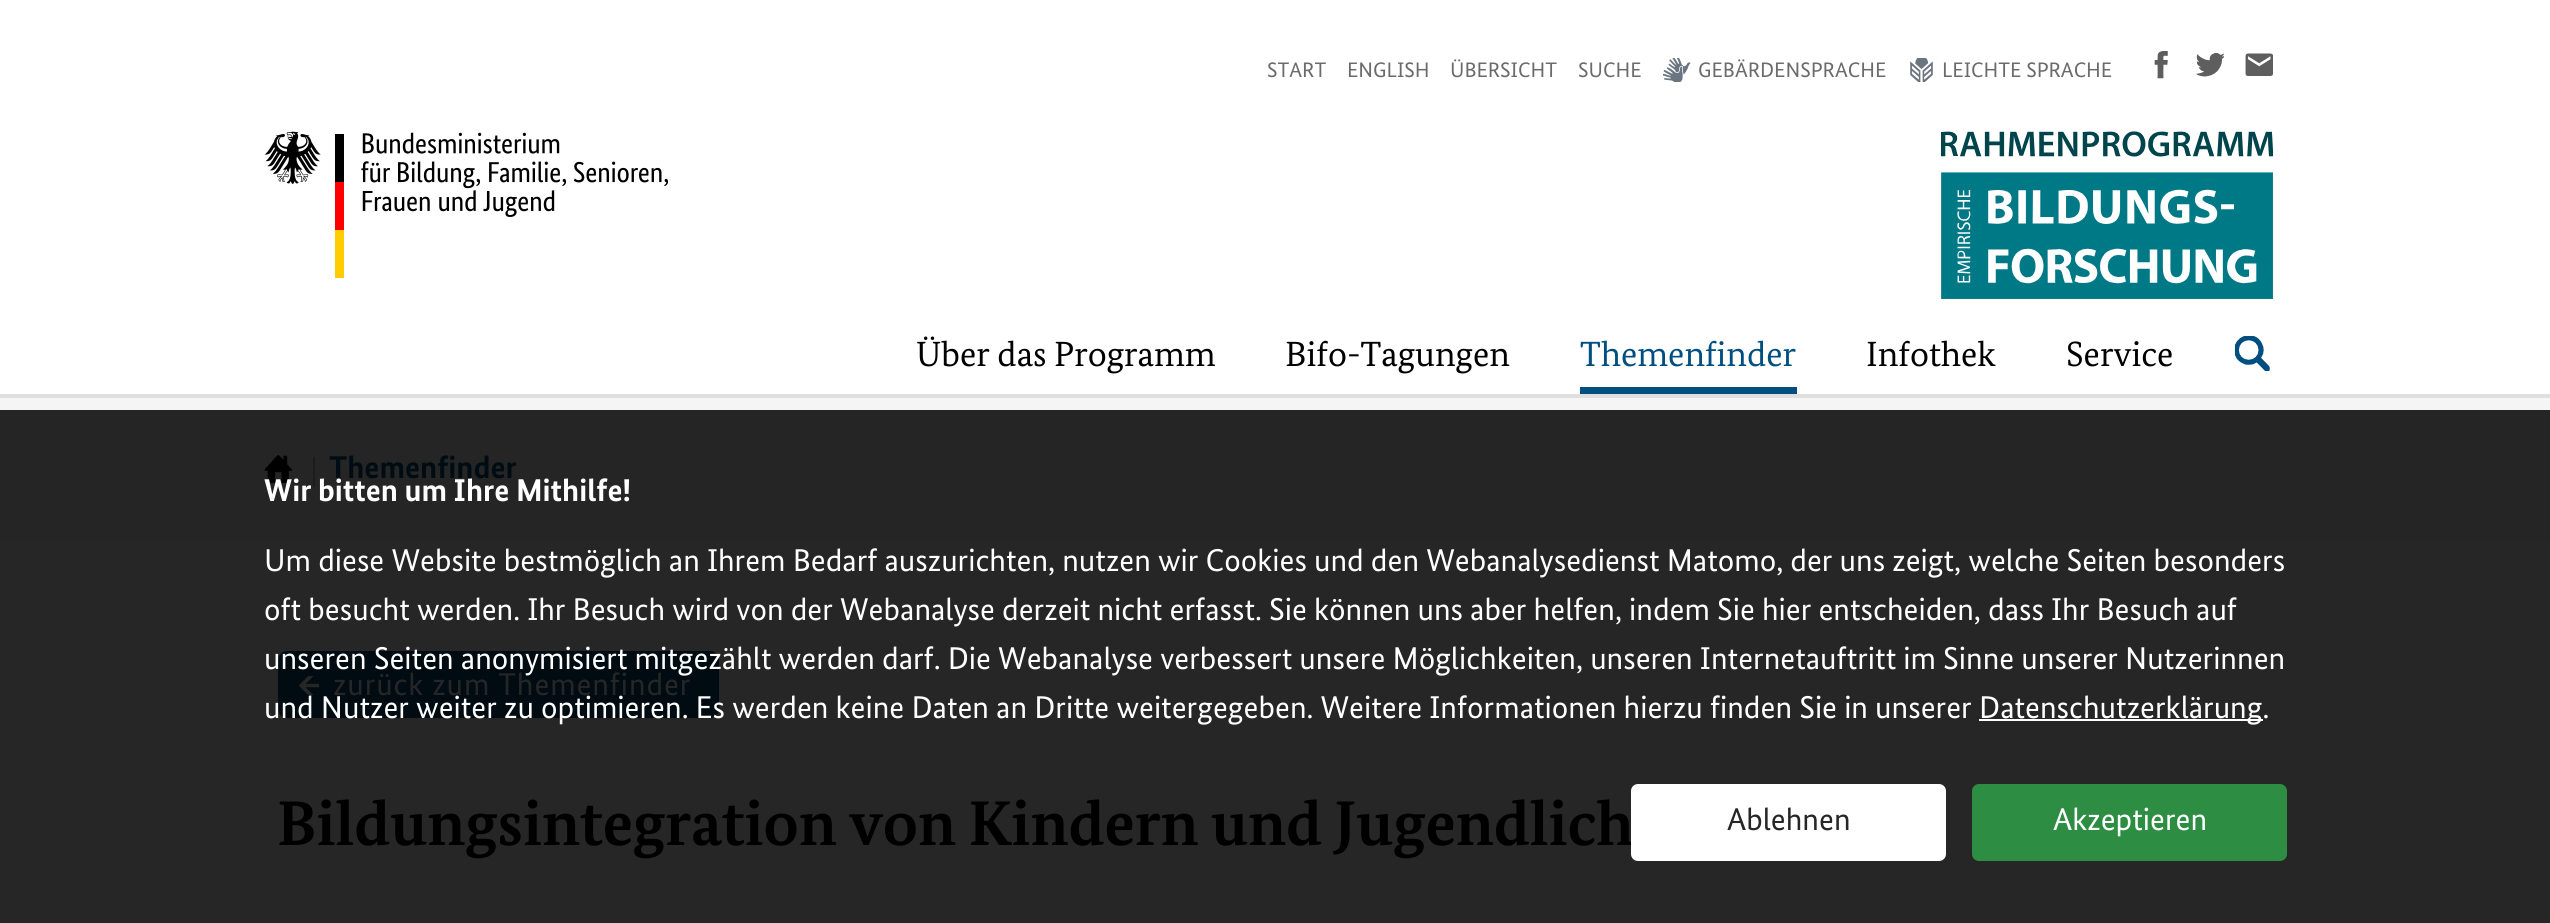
#include <cairo/cairo.h>
#include <math.h>
#include <stddef.h>

typedef struct { double x, y; const char *s; } line_t;
typedef struct { double x, y, w, h; unsigned color; } box_t;
static cairo_t *cr;

static void rgb(unsigned color)
{
	cairo_set_source_rgb(cr, (color >> 16) / 255.0, (color >> 8 & 255) / 255.0, (color & 255) / 255.0);
}

static void tracked(double x, double y, const char *s, double letter, double word)
{
	cairo_move_to(cr, x, y);
	while (*s) {
		char ch[5] = {0};
		int n = 0;
		do ch[n++] = *s++; while ((*s & 0xC0) == 0x80);
		cairo_show_text(cr, ch);
		cairo_rel_move_to(cr, letter + word * (*ch == ' '), 0);
	}
}

static void rrect(double x, double y, double w, double h, double r)
{
	cairo_new_sub_path(cr);
	cairo_arc(cr, x + w - r, y + h - r, r, 0, M_PI / 2);
	cairo_arc(cr, x + r, y + h - r, r, M_PI / 2, M_PI);
	cairo_arc(cr, x + r, y + r, r, M_PI, 1.5 * M_PI);
	cairo_arc(cr, x + w - r, y + r, r, 1.5 * M_PI, 2 * M_PI);
	cairo_close_path(cr);
}

static void image(const char *path, double x, double y, double w, double h)
{
	cairo_surface_t *image = cairo_image_surface_create_from_png(path);
	cairo_save(cr);
	cairo_set_source_surface(cr, image, x, y);
	cairo_rectangle(cr, x, y, w, h);
	cairo_fill(cr);
	cairo_restore(cr);
	cairo_surface_destroy(image);
}

int main(void) {
	cairo_surface_t *surface = cairo_image_surface_create(CAIRO_FORMAT_RGB24, 2550, 923);
	cr = cairo_create(surface);
	cairo_font_options_t *options = cairo_font_options_create();
	cairo_font_options_set_hint_metrics(options, CAIRO_HINT_METRICS_OFF);
	cairo_font_options_set_hint_style(options, CAIRO_HINT_STYLE_NONE);
	cairo_set_font_options(cr, options);
	cairo_set_miter_limit(cr, 4);
	rgb(0xffffff);
	cairo_paint(cr);
	rgb(0x262626);
	cairo_rectangle(cr, 0, 539, 2550, 384);
	cairo_fill(cr);
	image("img/1.png", 264, 131, 404, 147);
	image("img/2.png", 1663, 58, 28, 24);
	image("img/3.png", 1910, 58, 23, 24);
	image("img/4.png", 2154, 51, 14, 28);
	image("img/5.png", 2196, 53, 29, 24);
	image("img/6.png", 2245, 53, 28, 23);
	rgb(0x004f80);
	cairo_rectangle(cr, 1580, 387, 217, 7);
	cairo_fill(cr);
	image("img/7.png", 2234, 336, 36, 35);
	image("img/8.png", 1941, 131, 332, 168);
	{
		static const box_t items[] = {
			{0, 398, 2550, 12, 0xf5f5f5},
			{0, 410, 2550, 129, 0x252525},
			{0, 394, 2550, 4, 0xdfdfdf},
		};
		for (size_t i = 0; i < sizeof items / sizeof *items; i++) {
			rgb(items[i].color);
			cairo_rectangle(cr, items[i].x, items[i].y, items[i].w, items[i].h);
			cairo_fill(cr);
		}
	}
	image("img/9.png", 264, 455, 28, 28);
	rgb(0x1c1c1c);
	cairo_rectangle(cr, 313, 457, 2, 30);
	cairo_fill(cr);
	rgb(0xffffff);
	cairo_rectangle(cr, 1979, 719, 284, 2);
	cairo_fill(cr);
	rgb(0x2d8e43);
	rrect(1972, 784, 315, 77, 7);
	cairo_fill(cr);
	rgb(0x000b12);
	rrect(278, 651, 441, 67, 9);
	cairo_fill(cr);
	image("img/10.png", 299, 676, 20, 19);
	cairo_select_font_face(cr, "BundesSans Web", CAIRO_FONT_SLANT_NORMAL, CAIRO_FONT_WEIGHT_NORMAL);
	cairo_set_font_size(cr, 21);
	rgb(0x6b6b6b);
	{
		static const line_t items[] = {
			{1267, 77, "START"},
			{1347, 77, "ENGLISH"},
			{1450, 77, "ÜBERSICHT"},
			{1578, 77, "SUCHE"},
			{1698, 77, "GEBÄRDENSPRACHE"},
			{1942, 77, "LEICHTE SPRACHE"},
		};
		for (size_t i = 0; i < sizeof items / sizeof *items; i++) {
			cairo_move_to(cr, items[i].x, items[i].y);
			cairo_show_text(cr, items[i].s);
		}
	}
	cairo_select_font_face(cr, "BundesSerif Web", CAIRO_FONT_SLANT_NORMAL, CAIRO_FONT_WEIGHT_NORMAL);
	cairo_set_font_size(cr, 35);
	rgb(0x000000);
	cairo_move_to(cr, 916, 366);
	cairo_show_text(cr, "Über das Programm");
	cairo_move_to(cr, 1285, 366);
	cairo_show_text(cr, "Bifo-Tagungen");
	rgb(0x004f80);
	cairo_move_to(cr, 1580, 366);
	cairo_show_text(cr, "Themenfinder");
	rgb(0x000000);
	cairo_move_to(cr, 1866, 366);
	cairo_show_text(cr, "Infothek");
	cairo_move_to(cr, 2066, 366);
	cairo_show_text(cr, "Service");
	cairo_select_font_face(cr, "BundesSans Web", CAIRO_FONT_SLANT_NORMAL, CAIRO_FONT_WEIGHT_BOLD);
	cairo_set_font_size(cr, 31.5);
	rgb(0x000c13);
	cairo_move_to(cr, 329, 478);
	cairo_show_text(cr, "Themenfinder");
	rgb(0xffffff);
	cairo_move_to(cr, 264, 501);
	cairo_show_text(cr, "Wir bitten um Ihre Mithilfe!");
	cairo_select_font_face(cr, "BundesSans Web", CAIRO_FONT_SLANT_NORMAL, CAIRO_FONT_WEIGHT_NORMAL);
	{
		static const line_t items[] = {
			{264, 571, "Um diese Website bestmöglich an Ihrem Bedarf auszurichten, nutzen wir Cookies und den Webanalysedienst Matomo, der uns zeigt, welche Seiten besonders"},
			{264, 620, "oft besucht werden. Ihr Besuch wird von der Webanalyse derzeit nicht erfasst. Sie können uns aber helfen, indem Sie hier entscheiden, dass Ihr Besuch auf"},
			{264, 669, "unseren Seiten anonymisiert mitgezählt werden darf. Die Webanalyse verbessert unsere Möglichkeiten, unseren Internetauftritt im Sinne unserer Nutzerinnen"},
			{264, 718, "und Nutzer weiter zu optimieren. Es werden keine Daten an Dritte weitergegeben. Weitere Informationen hierzu finden Sie in unserer"},
			{1979, 718, "Datenschutzerklärung."},
			{2053, 830, "Akzeptieren"},
		};
		for (size_t i = 0; i < sizeof items / sizeof *items; i++) {
			cairo_move_to(cr, items[i].x, items[i].y);
			cairo_show_text(cr, items[i].s);
		}
	}
	rgb(0x262626);
	tracked(333, 695, "zurück zum Themenfinder", 0.9, 0);
	cairo_select_font_face(cr, "BundesSerif Web", CAIRO_FONT_SLANT_NORMAL, CAIRO_FONT_WEIGHT_BOLD);
	cairo_set_font_size(cr, 63);
	rgb(0x000000);
	cairo_move_to(cr, 277, 845);
	cairo_show_text(cr, "Bildungsintegration von Kindern und Jugendlich");
	rgb(0xffffff);
	rrect(1631, 784, 315, 77, 7);
	cairo_fill(cr);
	cairo_select_font_face(cr, "BundesSans Web", CAIRO_FONT_SLANT_NORMAL, CAIRO_FONT_WEIGHT_NORMAL);
	cairo_set_font_size(cr, 31.5);
	rgb(0x262626);
	cairo_move_to(cr, 1727, 830);
	cairo_show_text(cr, "Ablehnen");
	cairo_surface_write_to_png(surface, "page.png");
	cairo_font_options_destroy(options);
	cairo_destroy(cr);
	cairo_surface_destroy(surface);
	return 0;
}
